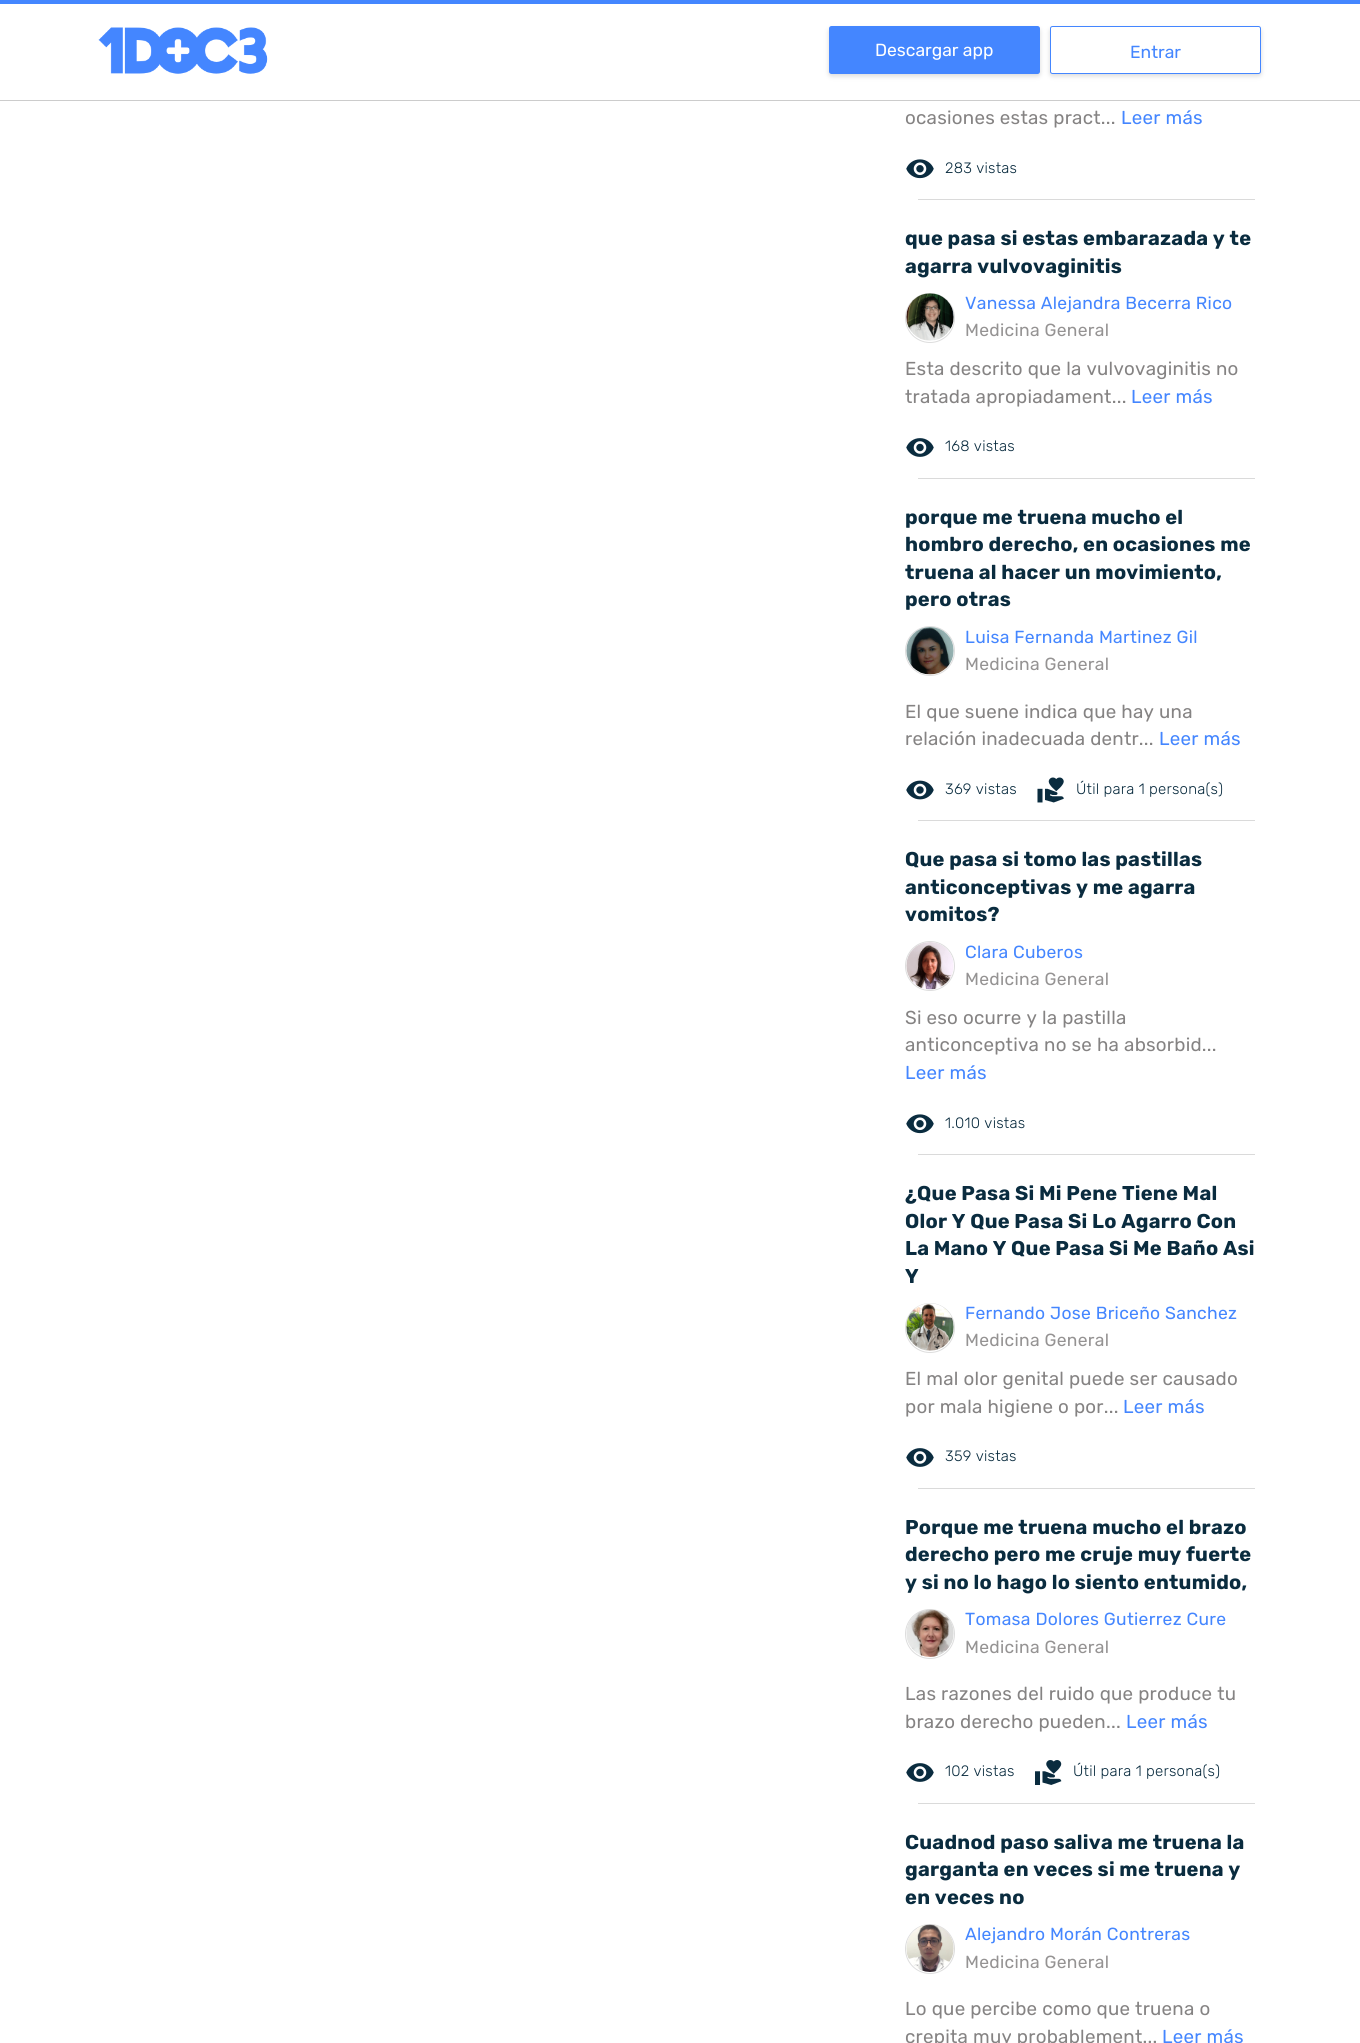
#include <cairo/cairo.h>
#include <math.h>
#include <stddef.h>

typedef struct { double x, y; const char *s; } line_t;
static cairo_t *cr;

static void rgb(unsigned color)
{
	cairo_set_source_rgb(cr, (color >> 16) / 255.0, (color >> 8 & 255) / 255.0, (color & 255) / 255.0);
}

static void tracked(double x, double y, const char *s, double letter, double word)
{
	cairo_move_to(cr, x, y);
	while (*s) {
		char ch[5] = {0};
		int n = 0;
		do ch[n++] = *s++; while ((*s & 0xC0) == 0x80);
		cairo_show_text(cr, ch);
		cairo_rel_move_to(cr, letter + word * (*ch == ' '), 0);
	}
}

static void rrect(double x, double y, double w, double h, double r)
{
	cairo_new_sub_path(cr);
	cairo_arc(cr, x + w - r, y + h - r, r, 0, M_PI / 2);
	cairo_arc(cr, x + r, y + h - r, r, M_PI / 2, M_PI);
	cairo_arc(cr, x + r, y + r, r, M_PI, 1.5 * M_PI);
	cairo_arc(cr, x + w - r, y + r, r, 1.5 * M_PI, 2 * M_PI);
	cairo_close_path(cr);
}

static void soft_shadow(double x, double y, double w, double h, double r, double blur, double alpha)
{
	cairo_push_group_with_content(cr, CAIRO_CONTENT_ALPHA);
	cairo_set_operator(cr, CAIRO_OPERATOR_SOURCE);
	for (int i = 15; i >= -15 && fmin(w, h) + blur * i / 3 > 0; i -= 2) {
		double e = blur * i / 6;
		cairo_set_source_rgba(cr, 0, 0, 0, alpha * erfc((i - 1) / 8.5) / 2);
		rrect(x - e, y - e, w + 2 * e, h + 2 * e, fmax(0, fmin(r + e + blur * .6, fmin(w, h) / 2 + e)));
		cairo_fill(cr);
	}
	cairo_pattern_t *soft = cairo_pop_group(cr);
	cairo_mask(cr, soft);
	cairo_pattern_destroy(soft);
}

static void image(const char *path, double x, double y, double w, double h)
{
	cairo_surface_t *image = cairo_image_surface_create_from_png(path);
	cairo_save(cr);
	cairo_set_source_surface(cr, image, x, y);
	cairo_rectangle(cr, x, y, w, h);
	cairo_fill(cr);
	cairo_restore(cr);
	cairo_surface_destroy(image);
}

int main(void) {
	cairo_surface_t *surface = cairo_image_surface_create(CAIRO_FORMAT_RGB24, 1360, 2043);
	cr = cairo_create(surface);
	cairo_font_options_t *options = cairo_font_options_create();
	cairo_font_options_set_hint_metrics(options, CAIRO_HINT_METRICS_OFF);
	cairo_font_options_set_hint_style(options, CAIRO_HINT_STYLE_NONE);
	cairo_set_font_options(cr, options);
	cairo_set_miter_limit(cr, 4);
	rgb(0xffffff);
	cairo_paint(cr);
	rgb(0xcccccc);
	cairo_rectangle(cr, 0, 100, 1360, 1);
	cairo_fill(cr);
	rgb(0x4486ff);
	cairo_rectangle(cr, 0, 0, 1360, 4);
	cairo_fill(cr);
	image("img/1.png", 98, 27, 170, 47);
	rgb(0xcacaca);
	soft_shadow(829, 29, 211, 47, 2.5, 2.5, 0.7);
	rgb(0x4486ff);
	rrect(829, 26, 211, 48, 2.5);
	cairo_fill(cr);
	rgb(0xcacaca);
	soft_shadow(1050, 29, 211, 47, 2.5, 2.5, 0.7);
	rgb(0xffffff);
	rrect(1050.5, 26.5, 210, 47, 2);
	cairo_fill_preserve(cr);
	rgb(0x4486ff);
	cairo_set_line_width(cr, 1);
	cairo_stroke(cr);
	image("img/2.png", 906, 159, 28, 20);
	rgb(0xdadada);
	cairo_rectangle(cr, 918, 199, 337, 1);
	cairo_fill(cr);
	cairo_arc(cr, 930, 318, 24.5, 0, 2 * M_PI);
	rgb(0xdddddd);
	cairo_stroke(cr);
	image("img/3.png", 906, 293, 48, 48);
	image("img/4.png", 906, 438, 28, 19);
	rgb(0xdadada);
	cairo_rectangle(cr, 918, 478, 337, 1);
	cairo_fill(cr);
	cairo_arc(cr, 930, 651, 24.5, 0, 2 * M_PI);
	rgb(0xdddddd);
	cairo_stroke(cr);
	image("img/5.png", 906, 627, 48, 48);
	image("img/6.png", 906, 780, 28, 20);
	image("img/7.png", 1037, 777, 27, 26);
	rgb(0xdadada);
	cairo_rectangle(cr, 918, 820, 337, 1);
	cairo_fill(cr);
	cairo_arc(cr, 930, 966, 24.5, 0, 2 * M_PI);
	rgb(0xdddddd);
	cairo_stroke(cr);
	image("img/8.png", 906, 942, 48, 48);
	image("img/2.png", 906, 1114, 28, 20);
	rgb(0xdadada);
	cairo_rectangle(cr, 918, 1154, 337, 1);
	cairo_fill(cr);
	cairo_arc(cr, 930, 1328, 24.5, 0, 2 * M_PI);
	rgb(0xdddddd);
	cairo_stroke(cr);
	image("img/9.png", 906, 1303, 48, 48);
	image("img/4.png", 906, 1448, 28, 19);
	rgb(0xdadada);
	cairo_rectangle(cr, 918, 1488, 337, 1);
	cairo_fill(cr);
	cairo_arc(cr, 930, 1634, 24.5, 0, 2 * M_PI);
	rgb(0xdddddd);
	cairo_stroke(cr);
	image("img/10.png", 906, 1609, 48, 48);
	image("img/4.png", 906, 1763, 28, 19);
	image("img/11.png", 1035, 1760, 27, 25);
	rgb(0xdadada);
	cairo_rectangle(cr, 918, 1803, 337, 1);
	cairo_fill(cr);
	cairo_arc(cr, 930, 1949, 24.5, 0, 2 * M_PI);
	rgb(0xdddddd);
	cairo_stroke(cr);
	image("img/12.png", 906, 1924, 48, 48);
	cairo_select_font_face(cr, "Rubik", CAIRO_FONT_SLANT_NORMAL, CAIRO_FONT_WEIGHT_NORMAL);
	cairo_set_font_size(cr, 17.5);
	rgb(0xffffff);
	cairo_move_to(cr, 875, 56);
	cairo_show_text(cr, "Descargar app");
	rgb(0x4486ff);
	cairo_move_to(cr, 1130, 58);
	cairo_show_text(cr, "Entrar");
	cairo_set_font_size(cr, 18.75);
	rgb(0x858383);
	tracked(905, 124, "ocasiones estas pract...", 0.25, 0);
	rgb(0x4486ff);
	tracked(1121, 124, "Leer más", 0.25, 0);
	cairo_select_font_face(cr, "Rubik Light", CAIRO_FONT_SLANT_NORMAL, CAIRO_FONT_WEIGHT_NORMAL);
	cairo_set_font_size(cr, 15);
	rgb(0x0a2c3f);
	tracked(945, 173, "283 vistas", 0.25, 0);
	cairo_select_font_face(cr, "Rubik", CAIRO_FONT_SLANT_NORMAL, CAIRO_FONT_WEIGHT_BOLD);
	cairo_set_font_size(cr, 20);
	tracked(905, 245, "que pasa si estas embarazada y te", 0.25, 0);
	tracked(905, 273, "agarra vulvovaginitis", 0.25, 0);
	cairo_select_font_face(cr, "Rubik", CAIRO_FONT_SLANT_NORMAL, CAIRO_FONT_WEIGHT_NORMAL);
	cairo_set_font_size(cr, 17.5);
	rgb(0x4486ff);
	tracked(965, 309, "Vanessa Alejandra Becerra Rico", 0.3, 0);
	rgb(0x959393);
	tracked(965, 336, "Medicina General", 0.3, 0);
	cairo_set_font_size(cr, 18.75);
	rgb(0x858383);
	tracked(905, 375, "Esta descrito que la vulvovaginitis no", 0.25, 0);
	tracked(905, 403, "tratada apropiadament...", 0.25, 0);
	rgb(0x4486ff);
	tracked(1131, 403, "Leer más", 0.25, 0);
	cairo_select_font_face(cr, "Rubik Light", CAIRO_FONT_SLANT_NORMAL, CAIRO_FONT_WEIGHT_NORMAL);
	cairo_set_font_size(cr, 15);
	rgb(0x0a2c3f);
	tracked(945, 451, "168 vistas", 0.25, 0);
	cairo_select_font_face(cr, "Rubik", CAIRO_FONT_SLANT_NORMAL, CAIRO_FONT_WEIGHT_BOLD);
	cairo_set_font_size(cr, 20);
	{
		static const line_t items[] = {
			{905, 524, "porque me truena mucho el"},
			{905, 551, "hombro derecho, en ocasiones me"},
			{905, 579, "truena al hacer un movimiento,"},
			{905, 606, "pero otras"},
		};
		for (size_t i = 0; i < sizeof items / sizeof *items; i++) {
			tracked(items[i].x, items[i].y, items[i].s, 0.25, 0);
		}
	}
	cairo_select_font_face(cr, "Rubik", CAIRO_FONT_SLANT_NORMAL, CAIRO_FONT_WEIGHT_NORMAL);
	cairo_set_font_size(cr, 17.5);
	rgb(0x4486ff);
	tracked(965, 643, "Luisa Fernanda Martinez Gil", 0.3, 0);
	rgb(0x959393);
	tracked(965, 670, "Medicina General", 0.3, 0);
	cairo_set_font_size(cr, 18.75);
	rgb(0x858383);
	tracked(905, 718, "El que suene indica que hay una", 0.25, 0);
	tracked(905, 745, "relación inadecuada dentr...", 0.25, 0);
	rgb(0x4486ff);
	tracked(1159, 745, "Leer más", 0.25, 0);
	cairo_select_font_face(cr, "Rubik Light", CAIRO_FONT_SLANT_NORMAL, CAIRO_FONT_WEIGHT_NORMAL);
	cairo_set_font_size(cr, 15);
	rgb(0x0a2c3f);
	tracked(945, 794, "369 vistas", 0.25, 0);
	tracked(1076, 794, "Útil para 1 persona(s)", 0.25, 0);
	cairo_select_font_face(cr, "Rubik", CAIRO_FONT_SLANT_NORMAL, CAIRO_FONT_WEIGHT_BOLD);
	cairo_set_font_size(cr, 20);
	{
		static const line_t items[] = {
			{905, 866, "Que pasa si tomo las pastillas"},
			{905, 894, "anticonceptivas y me agarra"},
			{905, 921, "vomitos?"},
		};
		for (size_t i = 0; i < sizeof items / sizeof *items; i++) {
			tracked(items[i].x, items[i].y, items[i].s, 0.25, 0);
		}
	}
	cairo_select_font_face(cr, "Rubik", CAIRO_FONT_SLANT_NORMAL, CAIRO_FONT_WEIGHT_NORMAL);
	cairo_set_font_size(cr, 17.5);
	rgb(0x4486ff);
	tracked(965, 958, "Clara Cuberos", 0.3, 0);
	rgb(0x959393);
	tracked(965, 985, "Medicina General", 0.3, 0);
	cairo_set_font_size(cr, 18.75);
	rgb(0x858383);
	tracked(905, 1024, "Si eso ocurre y la pastilla", 0.25, 0);
	tracked(905, 1051, "anticonceptiva no se ha absorbid...", 0.25, 0);
	rgb(0x4486ff);
	tracked(905, 1079, "Leer más", 0.25, 0);
	cairo_select_font_face(cr, "Rubik Light", CAIRO_FONT_SLANT_NORMAL, CAIRO_FONT_WEIGHT_NORMAL);
	cairo_set_font_size(cr, 15);
	rgb(0x0a2c3f);
	tracked(945, 1128, "1.010 vistas", 0.25, 0);
	cairo_select_font_face(cr, "Rubik", CAIRO_FONT_SLANT_NORMAL, CAIRO_FONT_WEIGHT_BOLD);
	cairo_set_font_size(cr, 20);
	{
		static const line_t items[] = {
			{905, 1200, "¿Que Pasa Si Mi Pene Tiene Mal"},
			{905, 1228, "Olor Y Que Pasa Si Lo Agarro Con"},
			{905, 1255, "La Mano Y Que Pasa Si Me Baño Asi"},
			{905, 1283, "Y"},
		};
		for (size_t i = 0; i < sizeof items / sizeof *items; i++) {
			tracked(items[i].x, items[i].y, items[i].s, 0.25, 0);
		}
	}
	cairo_select_font_face(cr, "Rubik", CAIRO_FONT_SLANT_NORMAL, CAIRO_FONT_WEIGHT_NORMAL);
	cairo_set_font_size(cr, 17.5);
	rgb(0x4486ff);
	tracked(965, 1319, "Fernando Jose Briceño Sanchez", 0.3, 0);
	rgb(0x959393);
	tracked(965, 1346, "Medicina General", 0.3, 0);
	cairo_set_font_size(cr, 18.75);
	rgb(0x858383);
	tracked(905, 1385, "El mal olor genital puede ser causado", 0.25, 0);
	tracked(905, 1413, "por mala higiene o por...", 0.25, 0);
	rgb(0x4486ff);
	tracked(1123, 1413, "Leer más", 0.25, 0);
	cairo_select_font_face(cr, "Rubik Light", CAIRO_FONT_SLANT_NORMAL, CAIRO_FONT_WEIGHT_NORMAL);
	cairo_set_font_size(cr, 15);
	rgb(0x0a2c3f);
	tracked(945, 1461, "359 vistas", 0.25, 0);
	cairo_select_font_face(cr, "Rubik", CAIRO_FONT_SLANT_NORMAL, CAIRO_FONT_WEIGHT_BOLD);
	cairo_set_font_size(cr, 20);
	{
		static const line_t items[] = {
			{905, 1534, "Porque me truena mucho el brazo"},
			{905, 1561, "derecho pero me cruje muy fuerte"},
			{905, 1589, "y si no lo hago lo siento entumido,"},
		};
		for (size_t i = 0; i < sizeof items / sizeof *items; i++) {
			tracked(items[i].x, items[i].y, items[i].s, 0.25, 0);
		}
	}
	cairo_select_font_face(cr, "Rubik", CAIRO_FONT_SLANT_NORMAL, CAIRO_FONT_WEIGHT_NORMAL);
	cairo_set_font_size(cr, 17.5);
	rgb(0x4486ff);
	tracked(965, 1625, "Tomasa Dolores Gutierrez Cure", 0.3, 0);
	rgb(0x959393);
	tracked(965, 1653, "Medicina General", 0.3, 0);
	cairo_set_font_size(cr, 18.75);
	rgb(0x858383);
	tracked(905, 1700, "Las razones del ruido que produce tu", 0.25, 0);
	tracked(905, 1728, "brazo derecho pueden...", 0.25, 0);
	rgb(0x4486ff);
	tracked(1126, 1728, "Leer más", 0.25, 0);
	cairo_select_font_face(cr, "Rubik Light", CAIRO_FONT_SLANT_NORMAL, CAIRO_FONT_WEIGHT_NORMAL);
	cairo_set_font_size(cr, 15);
	rgb(0x0a2c3f);
	tracked(945, 1776, "102 vistas", 0.25, 0);
	tracked(1073, 1776, "Útil para 1 persona(s)", 0.25, 0);
	cairo_select_font_face(cr, "Rubik", CAIRO_FONT_SLANT_NORMAL, CAIRO_FONT_WEIGHT_BOLD);
	cairo_set_font_size(cr, 20);
	{
		static const line_t items[] = {
			{905, 1849, "Cuadnod paso saliva me truena la"},
			{905, 1876, "garganta en veces si me truena y"},
			{905, 1904, "en veces no"},
		};
		for (size_t i = 0; i < sizeof items / sizeof *items; i++) {
			tracked(items[i].x, items[i].y, items[i].s, 0.25, 0);
		}
	}
	cairo_select_font_face(cr, "Rubik", CAIRO_FONT_SLANT_NORMAL, CAIRO_FONT_WEIGHT_NORMAL);
	cairo_set_font_size(cr, 17.5);
	rgb(0x4486ff);
	tracked(965, 1940, "Alejandro Morán Contreras", 0.3, 0);
	rgb(0x959393);
	tracked(965, 1968, "Medicina General", 0.3, 0);
	cairo_set_font_size(cr, 18.75);
	rgb(0x858383);
	tracked(905, 2015, "Lo que percibe como que truena o", 0.25, 0);
	tracked(905, 2043, "crepita muy probablement...", 0.25, 0);
	rgb(0x4486ff);
	tracked(1162, 2043, "Leer más", 0.25, 0);
	cairo_surface_write_to_png(surface, "page.png");
	cairo_font_options_destroy(options);
	cairo_destroy(cr);
	cairo_surface_destroy(surface);
	return 0;
}
